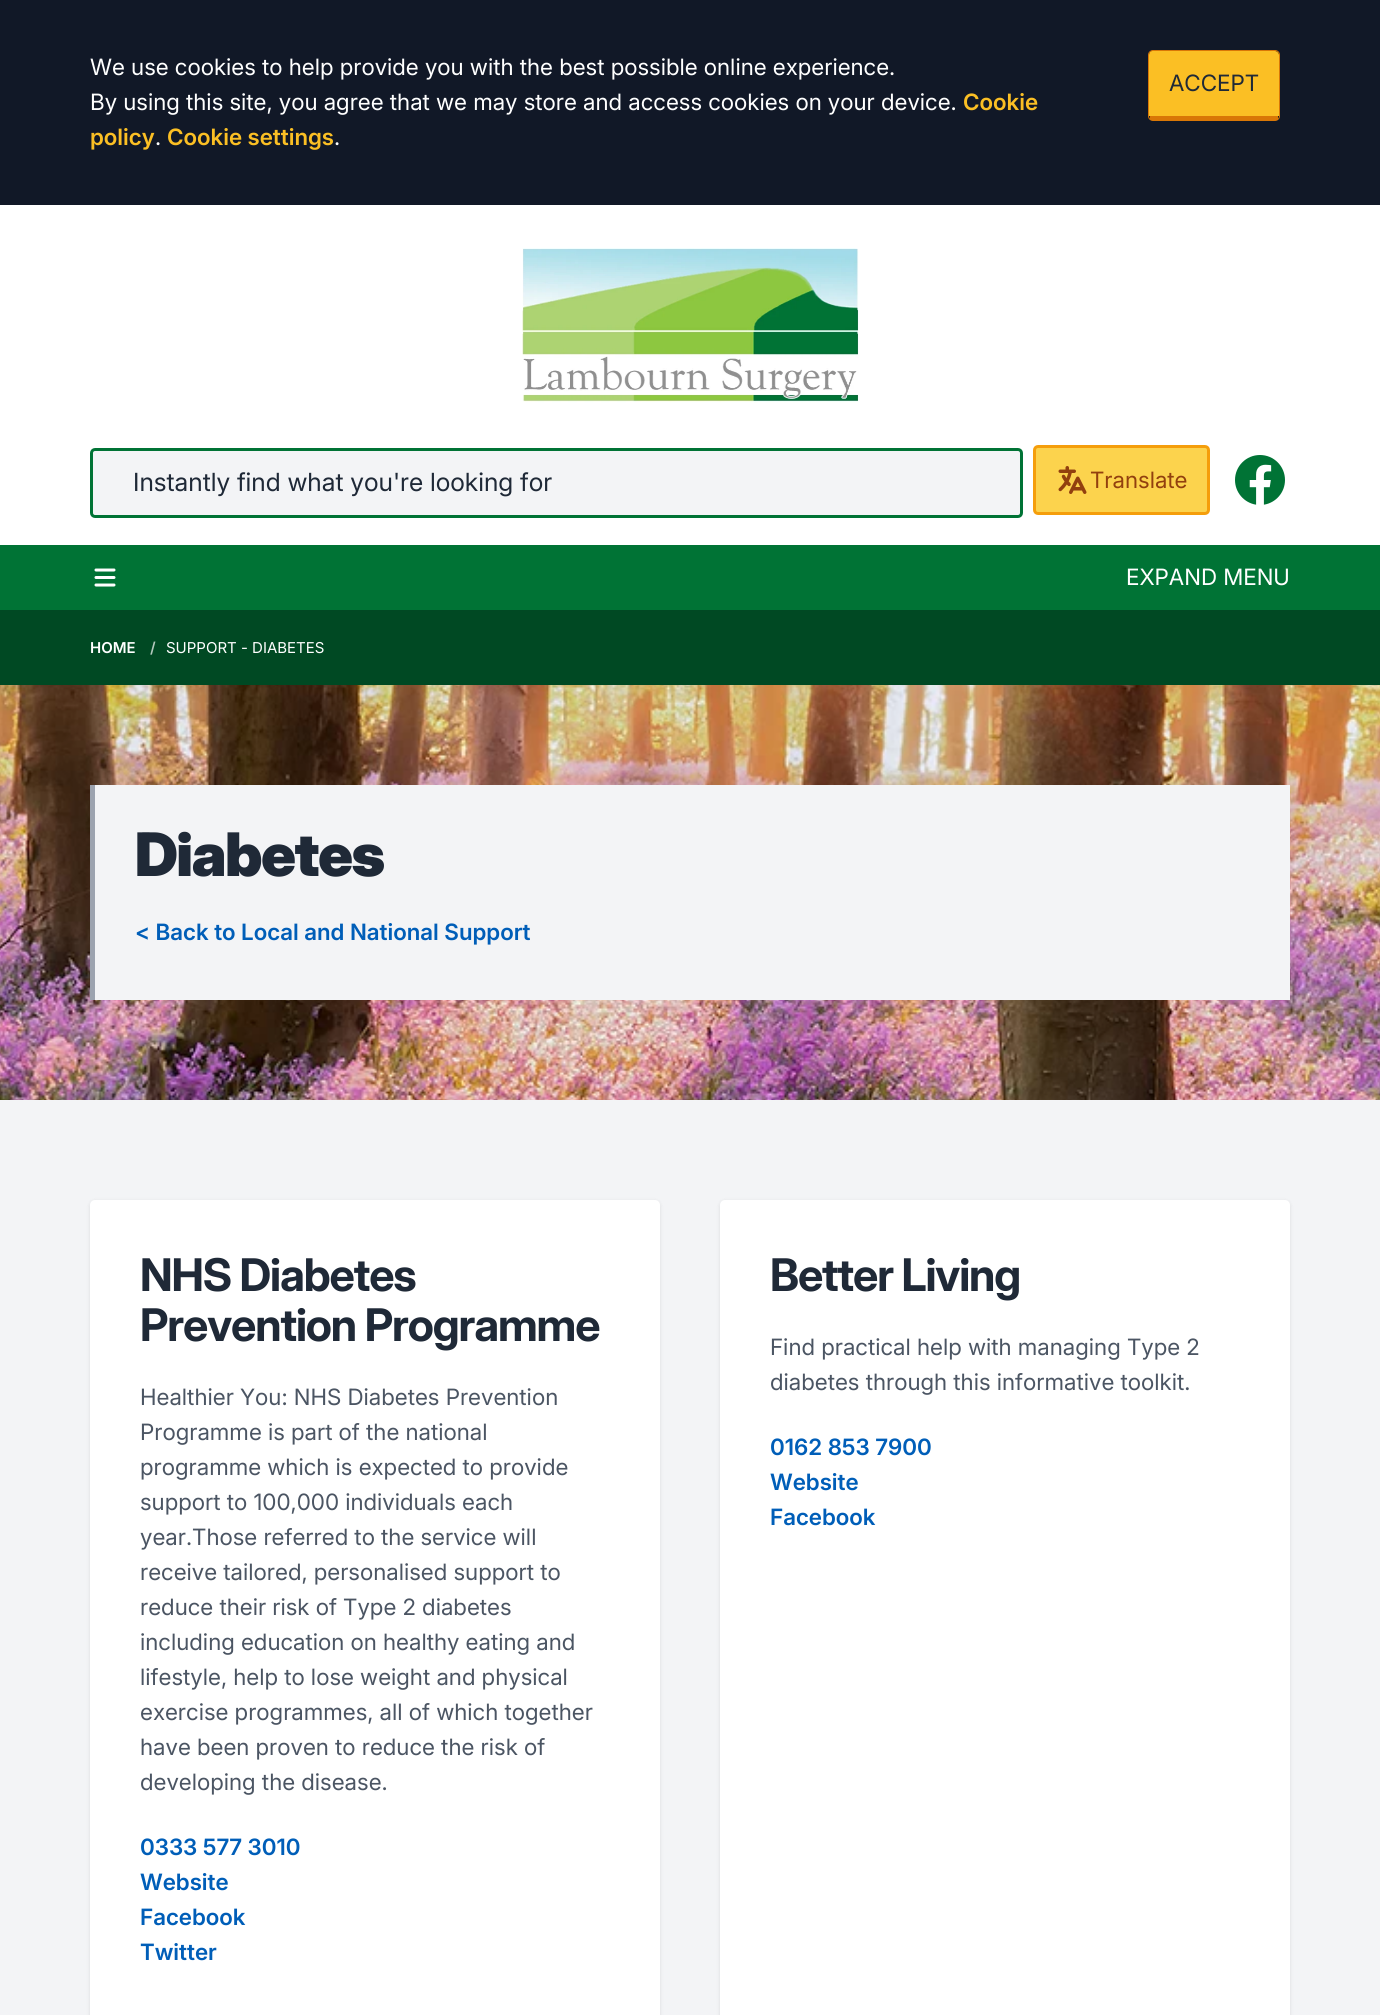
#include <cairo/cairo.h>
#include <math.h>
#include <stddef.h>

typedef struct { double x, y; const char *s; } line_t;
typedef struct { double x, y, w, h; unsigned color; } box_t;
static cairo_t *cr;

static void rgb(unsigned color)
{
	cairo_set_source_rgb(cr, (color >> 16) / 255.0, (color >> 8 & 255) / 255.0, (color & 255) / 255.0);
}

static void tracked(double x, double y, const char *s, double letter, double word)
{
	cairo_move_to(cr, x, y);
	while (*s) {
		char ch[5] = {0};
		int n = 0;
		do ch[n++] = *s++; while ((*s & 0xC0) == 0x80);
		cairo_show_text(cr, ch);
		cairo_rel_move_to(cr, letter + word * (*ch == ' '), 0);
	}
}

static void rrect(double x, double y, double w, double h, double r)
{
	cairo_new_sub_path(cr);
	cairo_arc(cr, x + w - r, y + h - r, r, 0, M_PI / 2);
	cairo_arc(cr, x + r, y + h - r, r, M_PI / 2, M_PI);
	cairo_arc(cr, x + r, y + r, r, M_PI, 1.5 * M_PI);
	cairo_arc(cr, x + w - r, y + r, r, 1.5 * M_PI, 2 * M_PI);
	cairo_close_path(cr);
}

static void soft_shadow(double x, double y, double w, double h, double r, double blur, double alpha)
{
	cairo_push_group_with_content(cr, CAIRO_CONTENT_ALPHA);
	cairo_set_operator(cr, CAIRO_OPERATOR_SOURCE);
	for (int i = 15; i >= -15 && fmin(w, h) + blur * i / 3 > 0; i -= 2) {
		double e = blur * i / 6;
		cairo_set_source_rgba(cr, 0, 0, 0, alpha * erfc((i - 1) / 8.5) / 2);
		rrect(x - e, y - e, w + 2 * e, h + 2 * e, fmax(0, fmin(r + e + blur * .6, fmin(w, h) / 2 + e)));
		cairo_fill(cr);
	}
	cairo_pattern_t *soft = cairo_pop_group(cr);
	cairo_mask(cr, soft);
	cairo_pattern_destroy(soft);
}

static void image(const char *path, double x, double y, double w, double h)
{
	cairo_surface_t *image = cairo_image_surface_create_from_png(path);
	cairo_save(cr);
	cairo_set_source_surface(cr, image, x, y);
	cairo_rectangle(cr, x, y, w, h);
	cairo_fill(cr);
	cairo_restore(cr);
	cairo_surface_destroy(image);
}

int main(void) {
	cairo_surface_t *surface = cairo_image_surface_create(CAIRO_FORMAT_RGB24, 1380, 2015);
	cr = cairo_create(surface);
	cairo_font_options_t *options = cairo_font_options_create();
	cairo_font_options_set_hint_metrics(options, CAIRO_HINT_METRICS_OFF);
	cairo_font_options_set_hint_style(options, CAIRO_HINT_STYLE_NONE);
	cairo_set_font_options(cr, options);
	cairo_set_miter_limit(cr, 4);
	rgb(0x004923);
	cairo_paint(cr);
	rgb(0x111827);
	cairo_rectangle(cr, 0, 0, 1380, 205);
	cairo_fill(cr);
	rgb(0xfbbf24);
	cairo_new_path(cr);
	cairo_move_to(cr, 1152, 51);
	cairo_line_to(cr, 1275, 51);
	cairo_curve_to(cr, 1277, 51, 1279, 53, 1279, 55);
	cairo_line_to(cr, 1279, 116);
	cairo_line_to(cr, 1149, 116);
	cairo_line_to(cr, 1149, 55);
	cairo_curve_to(cr, 1149, 53, 1150, 51, 1152, 51);
	cairo_close_path(cr);
	cairo_fill(cr);
	rrect(1148.5, 50.5, 131, 70, 4.5);
	rgb(0xd97706);
	cairo_set_line_width(cr, 1);
	cairo_stroke(cr);
	cairo_rectangle(cr, 1150, 116, 128, 4);
	cairo_fill(cr);
	rgb(0xffffff);
	cairo_rectangle(cr, 0, 205, 1380, 340);
	cairo_fill(cr);
	image("img/1.png", 522, 248, 337, 155);
	rgb(0xf3f4f6);
	rrect(91.5, 449.5, 930, 67, 3.5);
	cairo_fill_preserve(cr);
	rgb(0x007335);
	cairo_set_line_width(cr, 3);
	cairo_stroke(cr);
	rgb(0xfcd34d);
	rrect(1034.5, 446.5, 174, 67, 3.5);
	cairo_fill_preserve(cr);
	rgb(0xf59e0b);
	cairo_stroke(cr);
	image("img/2.png", 1058, 466, 29, 28);
	image("img/3.png", 1235, 455, 50, 50);
	rgb(0x007335);
	cairo_rectangle(cr, 0, 545, 1380, 65);
	cairo_fill(cr);
	image("img/4.png", 94, 568, 22, 19);
	image("img/5.png", 0, 685, 1380, 415);
	{
		static const box_t items[] = {
			{95, 785, 1195, 215, 0xf3f4f6},
			{90, 785, 5, 215, 0x9ca3af},
			{0, 1100, 1380, 915, 0xf3f4f6},
		};
		for (size_t i = 0; i < sizeof items / sizeof *items; i++) {
			rgb(items[i].color);
			cairo_rectangle(cr, items[i].x, items[i].y, items[i].w, items[i].h);
			cairo_fill(cr);
		}
	}
	rgb(0x000000);
	soft_shadow(90, 1201, 570, 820, 5, 2, 0.1);
	rgb(0xffffff);
	rrect(90, 1200, 570, 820, 5);
	cairo_fill(cr);
	rgb(0x000000);
	soft_shadow(720, 1201, 570, 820, 5, 2, 0.1);
	rgb(0xffffff);
	rrect(720, 1200, 570, 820, 5);
	cairo_fill(cr);
	cairo_select_font_face(cr, "Inter", CAIRO_FONT_SLANT_NORMAL, CAIRO_FONT_WEIGHT_NORMAL);
	cairo_set_font_size(cr, 22.5);
	cairo_move_to(cr, 90, 75);
	cairo_show_text(cr, "We use cookies to help provide you with the best possible online experience.");
	cairo_move_to(cr, 90, 110);
	cairo_show_text(cr, "By using this site, you agree that we may store and access cookies on your device.");
	cairo_select_font_face(cr, "Inter SemiBold", CAIRO_FONT_SLANT_NORMAL, CAIRO_FONT_WEIGHT_NORMAL);
	rgb(0xfbbf24);
	cairo_move_to(cr, 963, 110);
	cairo_show_text(cr, "Cookie");
	cairo_move_to(cr, 90, 145);
	cairo_show_text(cr, "policy");
	cairo_select_font_face(cr, "Inter", CAIRO_FONT_SLANT_NORMAL, CAIRO_FONT_WEIGHT_NORMAL);
	rgb(0xffffff);
	cairo_move_to(cr, 155, 145);
	cairo_show_text(cr, ".");
	cairo_select_font_face(cr, "Inter SemiBold", CAIRO_FONT_SLANT_NORMAL, CAIRO_FONT_WEIGHT_NORMAL);
	rgb(0xfbbf24);
	cairo_move_to(cr, 167, 145);
	cairo_show_text(cr, "Cookie settings");
	cairo_select_font_face(cr, "Inter", CAIRO_FONT_SLANT_NORMAL, CAIRO_FONT_WEIGHT_NORMAL);
	rgb(0xffffff);
	cairo_move_to(cr, 334, 145);
	cairo_show_text(cr, ".");
	rgb(0x1f2937);
	cairo_move_to(cr, 1169, 91);
	cairo_show_text(cr, "ACCEPT");
	cairo_select_font_face(cr, "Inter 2", CAIRO_FONT_SLANT_NORMAL, CAIRO_FONT_WEIGHT_NORMAL);
	cairo_set_font_size(cr, 25);
	cairo_move_to(cr, 133, 491);
	cairo_show_text(cr, "Instantly find what you're looking for");
	cairo_select_font_face(cr, "Inter", CAIRO_FONT_SLANT_NORMAL, CAIRO_FONT_WEIGHT_NORMAL);
	cairo_set_font_size(cr, 22.5);
	rgb(0x92400e);
	cairo_move_to(cr, 1090, 488);
	cairo_show_text(cr, "Translate");
	rgb(0xffffff);
	cairo_move_to(cr, 1126, 585);
	cairo_show_text(cr, "EXPAND MENU");
	cairo_select_font_face(cr, "Inter 2 SemiBold", CAIRO_FONT_SLANT_NORMAL, CAIRO_FONT_WEIGHT_NORMAL);
	cairo_set_font_size(cr, 15);
	cairo_move_to(cr, 90, 653);
	cairo_show_text(cr, "HOME");
	rgb(0xb3c8bd);
	cairo_move_to(cr, 150, 653);
	cairo_show_text(cr, "/");
	cairo_select_font_face(cr, "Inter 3", CAIRO_FONT_SLANT_NORMAL, CAIRO_FONT_WEIGHT_NORMAL);
	rgb(0xffffff);
	cairo_move_to(cr, 166, 653);
	cairo_show_text(cr, "SUPPORT - DIABETES");
	cairo_select_font_face(cr, "Inter Black", CAIRO_FONT_SLANT_NORMAL, CAIRO_FONT_WEIGHT_NORMAL);
	cairo_set_font_size(cr, 60);
	rgb(0x1f2937);
	tracked(135, 876, "Diabetes", -1.5, 0);
	cairo_select_font_face(cr, "Inter SemiBold", CAIRO_FONT_SLANT_NORMAL, CAIRO_FONT_WEIGHT_NORMAL);
	cairo_set_font_size(cr, 22.5);
	rgb(0x005eb8);
	cairo_move_to(cr, 135, 940);
	cairo_show_text(cr, "< Back to Local and National Support");
	cairo_select_font_face(cr, "Inter", CAIRO_FONT_SLANT_NORMAL, CAIRO_FONT_WEIGHT_BOLD);
	cairo_set_font_size(cr, 45);
	rgb(0x1f2937);
	tracked(140, 1291, "NHS Diabetes", -1.1, 0);
	tracked(140, 1341, "Prevention Programme", -1.1, 0);
	cairo_select_font_face(cr, "Inter", CAIRO_FONT_SLANT_NORMAL, CAIRO_FONT_WEIGHT_NORMAL);
	cairo_set_font_size(cr, 22.5);
	rgb(0x4b5563);
	{
		static const line_t items[] = {
			{140, 1405, "Healthier You: NHS Diabetes Prevention"},
			{140, 1440, "Programme is part of the national"},
			{140, 1475, "programme which is expected to provide"},
			{140, 1510, "support to 100,000 individuals each"},
			{140, 1545, "year.Those referred to the service will"},
			{140, 1580, "receive tailored, personalised support to"},
			{140, 1615, "reduce their risk of Type 2 diabetes"},
			{140, 1650, "including education on healthy eating and"},
			{140, 1685, "lifestyle, help to lose weight and physical"},
			{140, 1720, "exercise programmes, all of which together"},
			{140, 1755, "have been proven to reduce the risk of"},
			{140, 1790, "developing the disease."},
		};
		for (size_t i = 0; i < sizeof items / sizeof *items; i++) {
			cairo_move_to(cr, items[i].x, items[i].y);
			cairo_show_text(cr, items[i].s);
		}
	}
	cairo_select_font_face(cr, "Inter SemiBold", CAIRO_FONT_SLANT_NORMAL, CAIRO_FONT_WEIGHT_NORMAL);
	rgb(0x005eb8);
	{
		static const line_t items[] = {
			{140, 1855, "0333 577 3010"},
			{140, 1890, "Website"},
			{140, 1925, "Facebook"},
			{140, 1960, "Twitter"},
		};
		for (size_t i = 0; i < sizeof items / sizeof *items; i++) {
			cairo_move_to(cr, items[i].x, items[i].y);
			cairo_show_text(cr, items[i].s);
		}
	}
	cairo_select_font_face(cr, "Inter", CAIRO_FONT_SLANT_NORMAL, CAIRO_FONT_WEIGHT_BOLD);
	cairo_set_font_size(cr, 45);
	rgb(0x1f2937);
	tracked(770, 1291, "Better Living", -1.1, 0);
	cairo_select_font_face(cr, "Inter", CAIRO_FONT_SLANT_NORMAL, CAIRO_FONT_WEIGHT_NORMAL);
	cairo_set_font_size(cr, 22.5);
	rgb(0x4b5563);
	cairo_move_to(cr, 770, 1355);
	cairo_show_text(cr, "Find practical help with managing Type 2");
	cairo_move_to(cr, 770, 1390);
	cairo_show_text(cr, "diabetes through this informative toolkit.");
	cairo_select_font_face(cr, "Inter SemiBold", CAIRO_FONT_SLANT_NORMAL, CAIRO_FONT_WEIGHT_NORMAL);
	rgb(0x005eb8);
	{
		static const line_t items[] = {
			{770, 1455, "0162 853 7900"},
			{770, 1490, "Website"},
			{770, 1525, "Facebook"},
		};
		for (size_t i = 0; i < sizeof items / sizeof *items; i++) {
			cairo_move_to(cr, items[i].x, items[i].y);
			cairo_show_text(cr, items[i].s);
		}
	}
	cairo_surface_write_to_png(surface, "page.png");
	cairo_font_options_destroy(options);
	cairo_destroy(cr);
	cairo_surface_destroy(surface);
	return 0;
}
